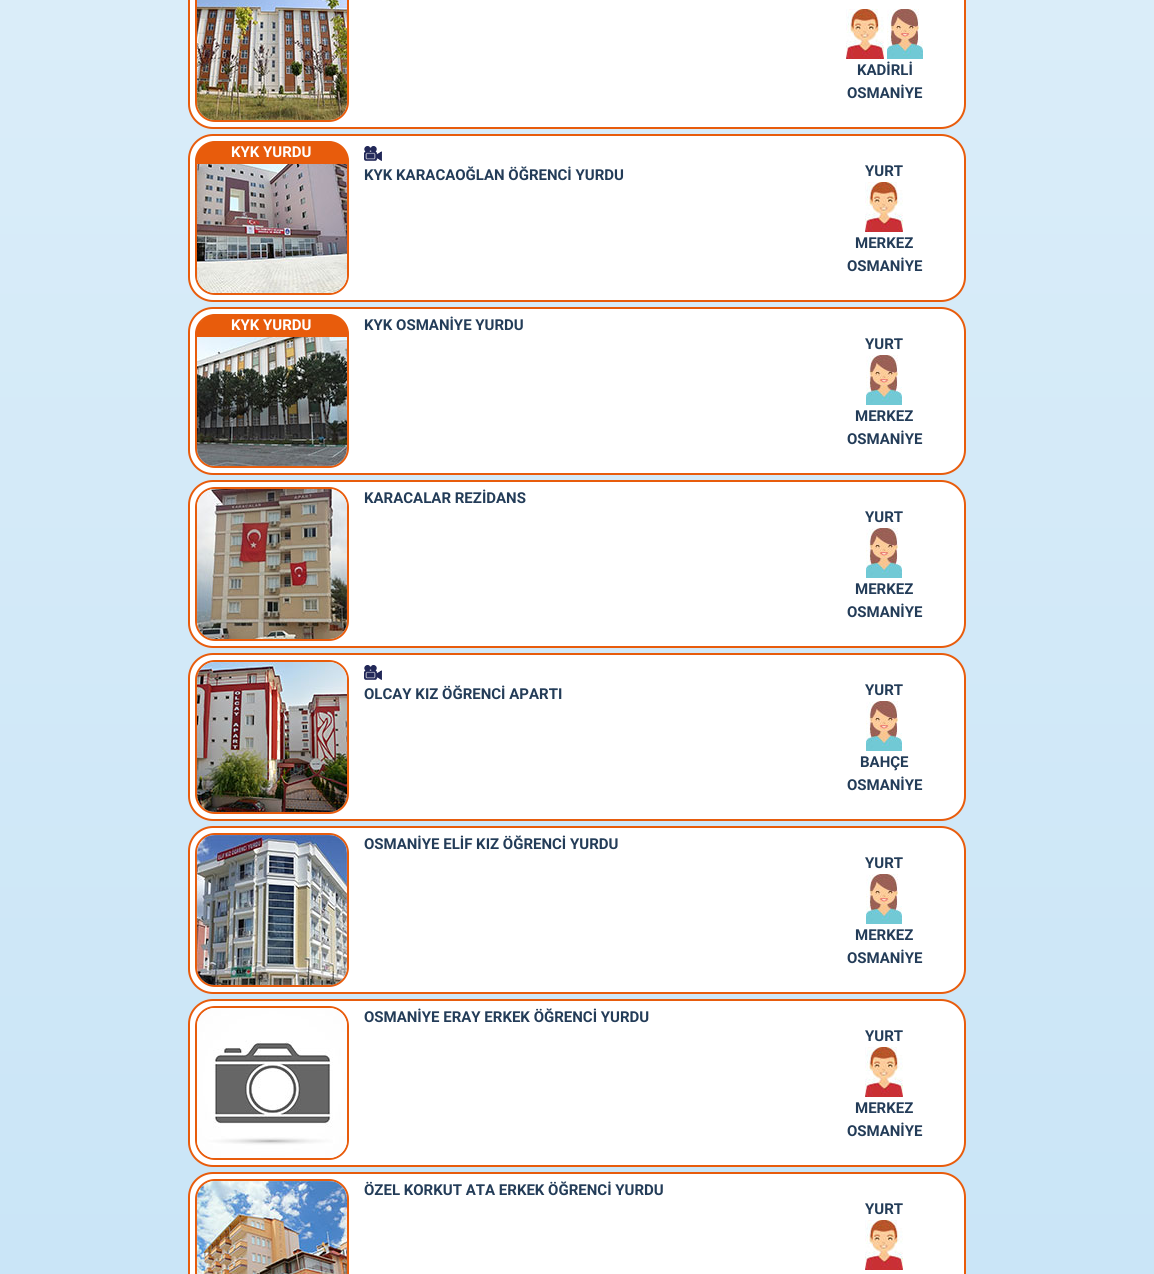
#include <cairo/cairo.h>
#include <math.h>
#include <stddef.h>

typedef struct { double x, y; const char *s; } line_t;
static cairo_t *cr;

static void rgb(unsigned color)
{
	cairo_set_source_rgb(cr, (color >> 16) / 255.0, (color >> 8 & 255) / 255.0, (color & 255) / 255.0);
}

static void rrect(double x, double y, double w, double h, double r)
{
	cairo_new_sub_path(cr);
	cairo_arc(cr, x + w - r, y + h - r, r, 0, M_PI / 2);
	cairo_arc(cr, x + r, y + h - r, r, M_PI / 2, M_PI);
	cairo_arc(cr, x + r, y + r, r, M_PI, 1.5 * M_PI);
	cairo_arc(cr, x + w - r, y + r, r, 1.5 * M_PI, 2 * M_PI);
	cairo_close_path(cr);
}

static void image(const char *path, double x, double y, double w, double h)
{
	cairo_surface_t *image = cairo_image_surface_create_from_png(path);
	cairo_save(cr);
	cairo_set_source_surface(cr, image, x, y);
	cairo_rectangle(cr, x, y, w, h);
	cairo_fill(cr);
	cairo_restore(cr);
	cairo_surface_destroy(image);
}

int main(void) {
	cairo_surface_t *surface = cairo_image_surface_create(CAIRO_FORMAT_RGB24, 1154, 1274);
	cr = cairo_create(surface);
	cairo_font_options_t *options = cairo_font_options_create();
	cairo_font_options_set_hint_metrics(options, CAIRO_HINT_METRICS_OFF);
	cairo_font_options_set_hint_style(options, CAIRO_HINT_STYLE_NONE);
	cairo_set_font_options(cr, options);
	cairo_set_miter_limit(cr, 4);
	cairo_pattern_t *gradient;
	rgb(0xffffff);
	cairo_paint(cr);
	gradient = cairo_pattern_create_linear(577, -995, 577, 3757);
	cairo_pattern_add_color_stop_rgba(gradient, 0, 0.906, 0.953, 0.984, 1);
	cairo_pattern_add_color_stop_rgba(gradient, 1, 0.667, 0.839, 0.949, 1);
	cairo_set_source(cr, gradient);
	cairo_pattern_destroy(gradient);
	cairo_rectangle(cr, 0, 0, 1154, 1274);
	cairo_fill(cr);
	rgb(0xffffff);
	rrect(189, -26, 776, 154, 24);
	cairo_fill_preserve(cr);
	rgb(0xe85c0c);
	cairo_stroke(cr);
	rrect(196, -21, 152, 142, 19);
	cairo_stroke(cr);
	image("img/1.png", 197, 0, 150, 120);
	image("img/2.png", 846, 9, 38, 50);
	image("img/3.png", 887, 9, 36, 50);
	rgb(0xffffff);
	rrect(189, 135, 776, 166, 24);
	cairo_fill_preserve(cr);
	rgb(0xe85c0c);
	cairo_stroke(cr);
	rrect(196, 142, 152, 152, 19);
	cairo_stroke(cr);
	image("img/4.png", 197, 146, 150, 147);
	cairo_new_path(cr);
	cairo_move_to(cr, 218, 141);
	cairo_line_to(cr, 326, 141);
	cairo_curve_to(cr, 338.5, 141, 349, 151.5, 349, 164);
	cairo_line_to(cr, 195, 164);
	cairo_curve_to(cr, 195, 151.5, 205.5, 141, 218, 141);
	cairo_close_path(cr);
	cairo_fill(cr);
	image("img/5.png", 364, 146, 18, 15);
	image("img/2.png", 865, 182, 38, 50);
	rgb(0xffffff);
	rrect(189, 308, 776, 166, 24);
	cairo_fill_preserve(cr);
	rgb(0xe85c0c);
	cairo_stroke(cr);
	rrect(196, 315, 152, 152, 19);
	cairo_stroke(cr);
	image("img/6.png", 197, 319, 150, 147);
	cairo_new_path(cr);
	cairo_move_to(cr, 218, 314);
	cairo_line_to(cr, 326, 314);
	cairo_curve_to(cr, 338.5, 314, 349, 324.5, 349, 337);
	cairo_line_to(cr, 195, 337);
	cairo_curve_to(cr, 195, 324.5, 205.5, 314, 218, 314);
	cairo_close_path(cr);
	cairo_fill(cr);
	image("img/3.png", 866, 355, 36, 50);
	rgb(0xffffff);
	rrect(189, 481, 776, 166, 24);
	cairo_fill_preserve(cr);
	rgb(0xe85c0c);
	cairo_stroke(cr);
	rrect(196, 488, 152, 152, 19);
	cairo_stroke(cr);
	image("img/7.png", 197, 489, 150, 150);
	image("img/3.png", 866, 528, 36, 50);
	rgb(0xffffff);
	rrect(189, 654, 776, 166, 24);
	cairo_fill_preserve(cr);
	rgb(0xe85c0c);
	cairo_stroke(cr);
	rrect(196, 661, 152, 152, 19);
	cairo_stroke(cr);
	image("img/8.png", 197, 662, 150, 150);
	image("img/5.png", 364, 665, 18, 15);
	image("img/3.png", 866, 701, 36, 50);
	rgb(0xffffff);
	rrect(189, 827, 776, 166, 24);
	cairo_fill_preserve(cr);
	rgb(0xe85c0c);
	cairo_stroke(cr);
	rrect(196, 834, 152, 152, 19);
	cairo_stroke(cr);
	image("img/9.png", 197, 835, 150, 150);
	image("img/3.png", 866, 874, 36, 50);
	rgb(0xffffff);
	rrect(189, 1000, 776, 166, 24);
	cairo_fill_preserve(cr);
	rgb(0xe85c0c);
	cairo_stroke(cr);
	rrect(196, 1007, 152, 152, 19);
	cairo_stroke(cr);
	image("img/10.png", 197, 1008, 150, 150);
	image("img/2.png", 865, 1047, 38, 50);
	rgb(0xffffff);
	rrect(189, 1173, 776, 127, 24);
	cairo_fill_preserve(cr);
	rgb(0xe85c0c);
	cairo_stroke(cr);
	rrect(196, 1180, 152, 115, 19);
	cairo_stroke(cr);
	image("img/11.png", 197, 1181, 150, 93);
	image("img/2.png", 865, 1220, 38, 50);
	cairo_select_font_face(cr, "Roboto", CAIRO_FONT_SLANT_NORMAL, CAIRO_FONT_WEIGHT_BOLD);
	cairo_set_font_size(cr, 15);
	rgb(0x233c58);
	cairo_move_to(cr, 857, 75);
	cairo_show_text(cr, "KADİRLİ");
	cairo_move_to(cr, 847, 98);
	cairo_show_text(cr, "OSMANİYE");
	rgb(0xffffff);
	cairo_move_to(cr, 231, 157);
	cairo_show_text(cr, "KYK YURDU");
	rgb(0x233c58);
	{
		static const line_t items[] = {
			{364, 180, "KYK KARACAOĞLAN ÖĞRENCİ YURDU"},
			{865, 176, "YURT"},
			{855, 248, "MERKEZ"},
			{847, 271, "OSMANİYE"},
			{364, 330, "KYK OSMANİYE YURDU"},
		};
		for (size_t i = 0; i < sizeof items / sizeof *items; i++) {
			cairo_move_to(cr, items[i].x, items[i].y);
			cairo_show_text(cr, items[i].s);
		}
	}
	rgb(0xffffff);
	cairo_move_to(cr, 231, 330);
	cairo_show_text(cr, "KYK YURDU");
	rgb(0x233c58);
	{
		static const line_t items[] = {
			{865, 349, "YURT"},
			{855, 421, "MERKEZ"},
			{847, 444, "OSMANİYE"},
			{364, 503, "KARACALAR REZİDANS"},
			{865, 522, "YURT"},
			{855, 594, "MERKEZ"},
			{847, 617, "OSMANİYE"},
			{364, 699, "OLCAY KIZ ÖĞRENCİ APARTI"},
			{865, 695, "YURT"},
			{860, 767, "BAHÇE"},
			{847, 790, "OSMANİYE"},
			{364, 849, "OSMANİYE ELİF KIZ ÖĞRENCİ YURDU"},
			{865, 868, "YURT"},
			{855, 940, "MERKEZ"},
			{847, 963, "OSMANİYE"},
			{364, 1022, "OSMANİYE ERAY ERKEK ÖĞRENCİ YURDU"},
			{865, 1041, "YURT"},
			{855, 1113, "MERKEZ"},
			{847, 1136, "OSMANİYE"},
			{364, 1195, "ÖZEL KORKUT ATA ERKEK ÖĞRENCİ YURDU"},
			{865, 1214, "YURT"},
		};
		for (size_t i = 0; i < sizeof items / sizeof *items; i++) {
			cairo_move_to(cr, items[i].x, items[i].y);
			cairo_show_text(cr, items[i].s);
		}
	}
	cairo_surface_write_to_png(surface, "page.png");
	cairo_font_options_destroy(options);
	cairo_destroy(cr);
	cairo_surface_destroy(surface);
	return 0;
}
